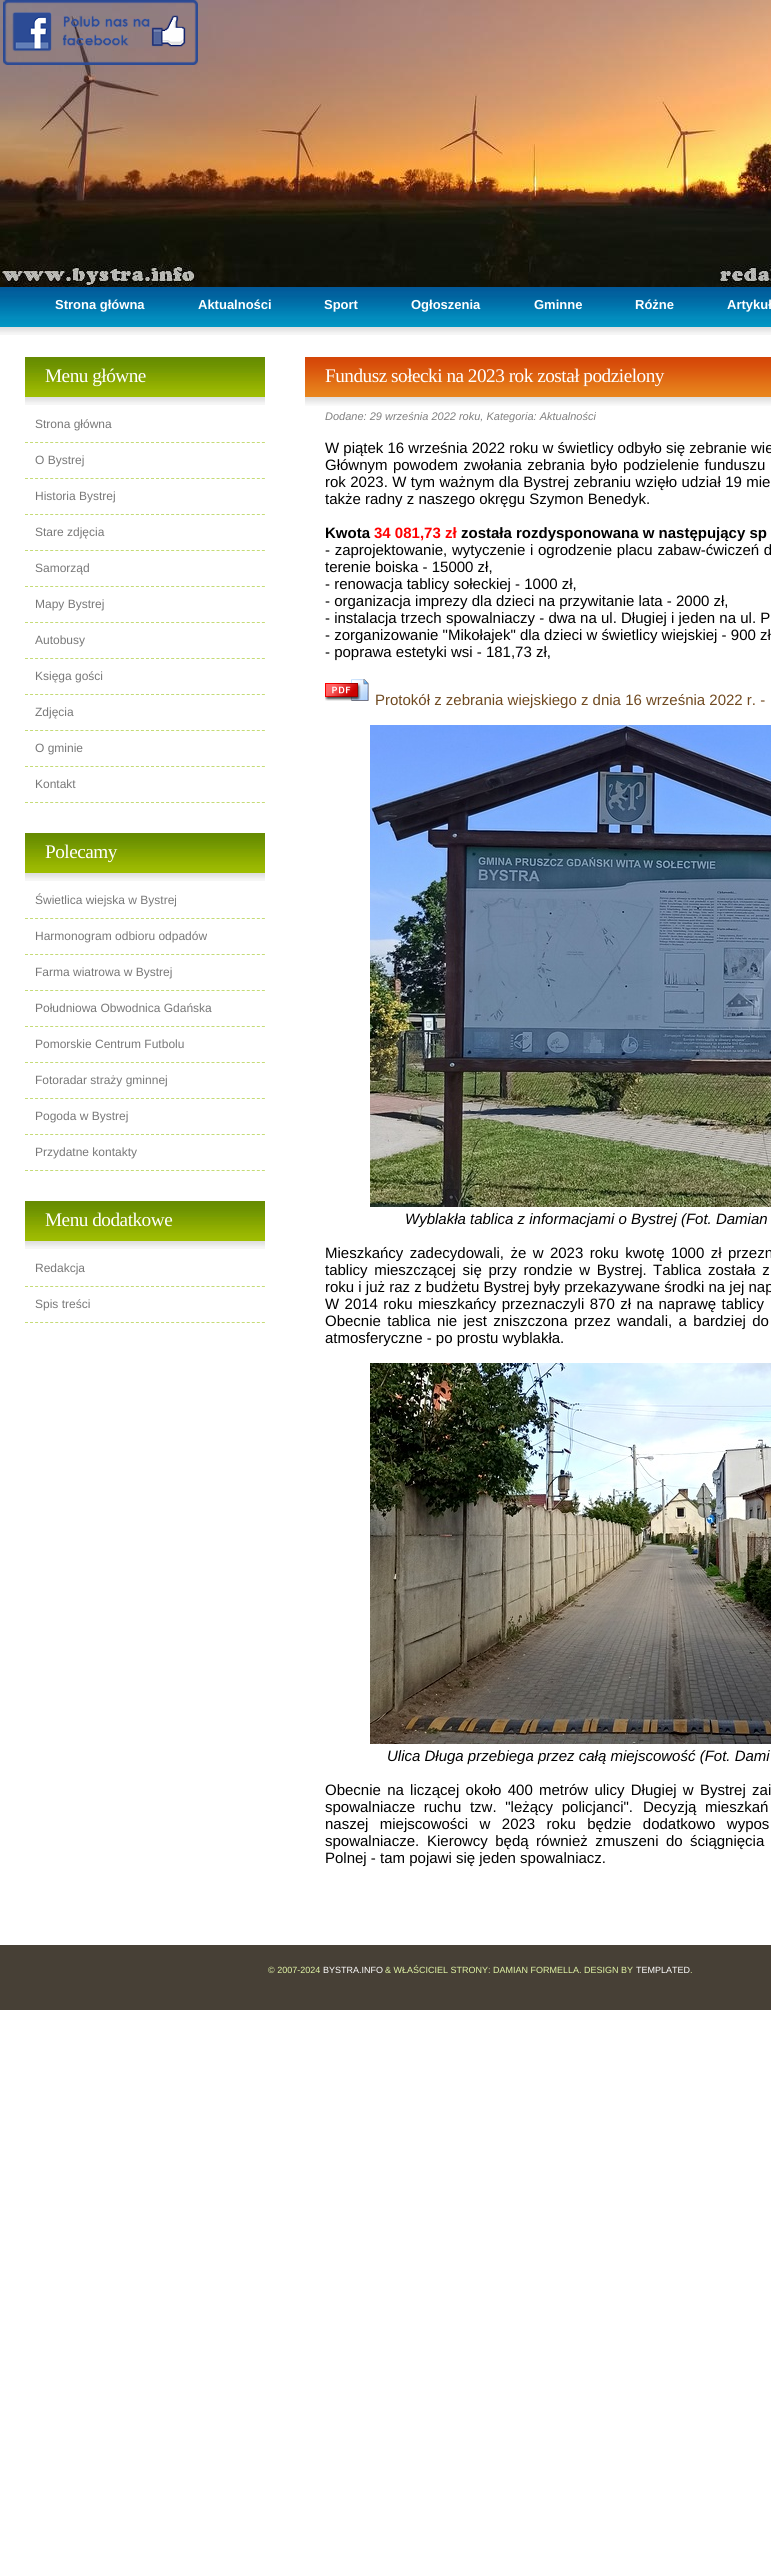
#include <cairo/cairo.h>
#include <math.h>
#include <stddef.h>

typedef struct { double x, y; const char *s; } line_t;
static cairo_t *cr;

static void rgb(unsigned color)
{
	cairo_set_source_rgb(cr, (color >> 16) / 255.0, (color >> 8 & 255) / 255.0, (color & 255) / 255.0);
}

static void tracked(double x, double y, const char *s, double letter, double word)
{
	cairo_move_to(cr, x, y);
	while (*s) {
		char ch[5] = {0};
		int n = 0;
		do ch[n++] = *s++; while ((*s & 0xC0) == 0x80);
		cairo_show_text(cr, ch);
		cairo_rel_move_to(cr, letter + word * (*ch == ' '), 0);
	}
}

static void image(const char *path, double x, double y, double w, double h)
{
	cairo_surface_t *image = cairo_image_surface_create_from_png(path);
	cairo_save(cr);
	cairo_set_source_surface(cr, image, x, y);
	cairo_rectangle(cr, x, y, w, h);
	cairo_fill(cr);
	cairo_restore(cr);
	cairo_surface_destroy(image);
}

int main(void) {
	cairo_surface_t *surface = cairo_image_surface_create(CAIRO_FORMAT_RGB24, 771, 2573);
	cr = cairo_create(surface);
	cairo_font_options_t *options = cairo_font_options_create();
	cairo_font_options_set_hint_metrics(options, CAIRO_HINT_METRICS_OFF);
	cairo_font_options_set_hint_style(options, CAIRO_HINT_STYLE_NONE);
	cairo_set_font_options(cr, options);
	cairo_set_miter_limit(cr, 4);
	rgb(0xffffff);
	cairo_paint(cr);
	image("img/1.png", 0, 0, 771, 287);
	image("img/2.png", 3, 0, 195, 65);
	image("img/3.png", 0, 287, 771, 48);
	image("img/4.png", 25, 357, 240, 48);
	cairo_new_path(cr);
	cairo_move_to(cr, 25, 442.5);
	cairo_line_to(cr, 265, 442.5);
	rgb(0xc5db76);
	cairo_set_line_width(cr, 1);
	cairo_set_dash(cr, (double[]){3, 2.04}, 2, 0);
	cairo_stroke(cr);
	cairo_new_path(cr);
	cairo_move_to(cr, 25, 478.5);
	cairo_line_to(cr, 265, 478.5);
	cairo_stroke(cr);
	cairo_new_path(cr);
	cairo_move_to(cr, 25, 514.5);
	cairo_line_to(cr, 265, 514.5);
	cairo_stroke(cr);
	cairo_new_path(cr);
	cairo_move_to(cr, 25, 550.5);
	cairo_line_to(cr, 265, 550.5);
	cairo_stroke(cr);
	cairo_new_path(cr);
	cairo_move_to(cr, 25, 586.5);
	cairo_line_to(cr, 265, 586.5);
	cairo_stroke(cr);
	cairo_new_path(cr);
	cairo_move_to(cr, 25, 622.5);
	cairo_line_to(cr, 265, 622.5);
	cairo_stroke(cr);
	cairo_new_path(cr);
	cairo_move_to(cr, 25, 658.5);
	cairo_line_to(cr, 265, 658.5);
	cairo_stroke(cr);
	cairo_new_path(cr);
	cairo_move_to(cr, 25, 694.5);
	cairo_line_to(cr, 265, 694.5);
	cairo_stroke(cr);
	cairo_new_path(cr);
	cairo_move_to(cr, 25, 730.5);
	cairo_line_to(cr, 265, 730.5);
	cairo_stroke(cr);
	cairo_new_path(cr);
	cairo_move_to(cr, 25, 766.5);
	cairo_line_to(cr, 265, 766.5);
	cairo_stroke(cr);
	cairo_new_path(cr);
	cairo_move_to(cr, 25, 802.5);
	cairo_line_to(cr, 265, 802.5);
	cairo_stroke(cr);
	image("img/4.png", 25, 833, 240, 48);
	cairo_new_path(cr);
	cairo_move_to(cr, 25, 918.5);
	cairo_line_to(cr, 265, 918.5);
	cairo_stroke(cr);
	cairo_new_path(cr);
	cairo_move_to(cr, 25, 954.5);
	cairo_line_to(cr, 265, 954.5);
	cairo_stroke(cr);
	cairo_new_path(cr);
	cairo_move_to(cr, 25, 990.5);
	cairo_line_to(cr, 265, 990.5);
	cairo_stroke(cr);
	cairo_new_path(cr);
	cairo_move_to(cr, 25, 1026.5);
	cairo_line_to(cr, 265, 1026.5);
	cairo_stroke(cr);
	cairo_new_path(cr);
	cairo_move_to(cr, 25, 1062.5);
	cairo_line_to(cr, 265, 1062.5);
	cairo_stroke(cr);
	cairo_new_path(cr);
	cairo_move_to(cr, 25, 1098.5);
	cairo_line_to(cr, 265, 1098.5);
	cairo_stroke(cr);
	cairo_new_path(cr);
	cairo_move_to(cr, 25, 1134.5);
	cairo_line_to(cr, 265, 1134.5);
	cairo_stroke(cr);
	cairo_new_path(cr);
	cairo_move_to(cr, 25, 1170.5);
	cairo_line_to(cr, 265, 1170.5);
	cairo_stroke(cr);
	image("img/4.png", 25, 1201, 240, 48);
	cairo_new_path(cr);
	cairo_move_to(cr, 25, 1286.5);
	cairo_line_to(cr, 265, 1286.5);
	cairo_stroke(cr);
	cairo_new_path(cr);
	cairo_move_to(cr, 25, 1322.5);
	cairo_line_to(cr, 265, 1322.5);
	cairo_stroke(cr);
	image("img/5.png", 305, 357, 466, 49);
	image("img/6.png", 325, 679, 44, 22);
	image("img/7.png", 370, 725, 401, 482);
	image("img/8.png", 370, 1363, 401, 381);
	rgb(0x474036);
	cairo_rectangle(cr, 0, 1945, 771, 65);
	cairo_fill(cr);
	cairo_select_font_face(cr, "Liberation Sans", CAIRO_FONT_SLANT_NORMAL, CAIRO_FONT_WEIGHT_BOLD);
	cairo_set_font_size(cr, 13);
	rgb(0xffffff);
	{
		static const line_t items[] = {
			{55, 309, "Strona główna"},
			{198, 309, "Aktualności"},
			{324, 309, "Sport"},
			{411, 309, "Ogłoszenia"},
			{534, 309, "Gminne"},
			{635, 309, "Różne"},
			{727, 309, "Artykuł"},
		};
		for (size_t i = 0; i < sizeof items / sizeof *items; i++) {
			cairo_move_to(cr, items[i].x, items[i].y);
			cairo_show_text(cr, items[i].s);
		}
	}
	cairo_select_font_face(cr, "Liberation Serif", CAIRO_FONT_SLANT_NORMAL, CAIRO_FONT_WEIGHT_NORMAL);
	cairo_set_font_size(cr, 19.25);
	tracked(45, 382, "Menu główne", -0.5, 0);
	cairo_select_font_face(cr, "Liberation Sans", CAIRO_FONT_SLANT_NORMAL, CAIRO_FONT_WEIGHT_NORMAL);
	cairo_set_font_size(cr, 12);
	rgb(0x787878);
	{
		static const line_t items[] = {
			{35, 428, "Strona główna"},
			{35, 464, "O Bystrej"},
			{35, 500, "Historia Bystrej"},
			{35, 536, "Stare zdjęcia"},
			{35, 572, "Samorząd"},
			{35, 608, "Mapy Bystrej"},
			{35, 644, "Autobusy"},
			{35, 680, "Księga gości"},
			{35, 716, "Zdjęcia"},
			{35, 752, "O gminie"},
			{35, 788, "Kontakt"},
		};
		for (size_t i = 0; i < sizeof items / sizeof *items; i++) {
			cairo_move_to(cr, items[i].x, items[i].y);
			cairo_show_text(cr, items[i].s);
		}
	}
	cairo_select_font_face(cr, "Liberation Serif", CAIRO_FONT_SLANT_NORMAL, CAIRO_FONT_WEIGHT_NORMAL);
	cairo_set_font_size(cr, 19.25);
	rgb(0xffffff);
	tracked(45, 858, "Polecamy", -0.5, 0);
	cairo_select_font_face(cr, "Liberation Sans", CAIRO_FONT_SLANT_NORMAL, CAIRO_FONT_WEIGHT_NORMAL);
	cairo_set_font_size(cr, 12);
	rgb(0x787878);
	{
		static const line_t items[] = {
			{35, 904, "Świetlica wiejska w Bystrej"},
			{35, 940, "Harmonogram odbioru odpadów"},
			{35, 976, "Farma wiatrowa w Bystrej"},
			{35, 1012, "Południowa Obwodnica Gdańska"},
			{35, 1048, "Pomorskie Centrum Futbolu"},
			{35, 1084, "Fotoradar straży gminnej"},
			{35, 1120, "Pogoda w Bystrej"},
			{35, 1156, "Przydatne kontakty"},
		};
		for (size_t i = 0; i < sizeof items / sizeof *items; i++) {
			cairo_move_to(cr, items[i].x, items[i].y);
			cairo_show_text(cr, items[i].s);
		}
	}
	cairo_select_font_face(cr, "Liberation Serif", CAIRO_FONT_SLANT_NORMAL, CAIRO_FONT_WEIGHT_NORMAL);
	cairo_set_font_size(cr, 19.25);
	rgb(0xffffff);
	tracked(45, 1226, "Menu dodatkowe", -0.5, 0);
	cairo_select_font_face(cr, "Liberation Sans", CAIRO_FONT_SLANT_NORMAL, CAIRO_FONT_WEIGHT_NORMAL);
	cairo_set_font_size(cr, 12);
	rgb(0x787878);
	cairo_move_to(cr, 35, 1272);
	cairo_show_text(cr, "Redakcja");
	cairo_move_to(cr, 35, 1308);
	cairo_show_text(cr, "Spis treści");
	cairo_select_font_face(cr, "Liberation Serif", CAIRO_FONT_SLANT_NORMAL, CAIRO_FONT_WEIGHT_NORMAL);
	cairo_set_font_size(cr, 19.25);
	rgb(0xffffff);
	tracked(325, 382, "Fundusz sołecki na 2023 rok został podzielony", -0.5, 0);
	cairo_select_font_face(cr, "Liberation Sans", CAIRO_FONT_SLANT_ITALIC, CAIRO_FONT_WEIGHT_NORMAL);
	cairo_set_font_size(cr, 11);
	rgb(0x808080);
	cairo_move_to(cr, 325, 420);
	cairo_show_text(cr, "Dodane: 29 września 2022 roku, Kategoria: Aktualności");
	cairo_select_font_face(cr, "Liberation Sans", CAIRO_FONT_SLANT_NORMAL, CAIRO_FONT_WEIGHT_NORMAL);
	cairo_set_font_size(cr, 15);
	rgb(0x000000);
	cairo_move_to(cr, 325, 453);
	cairo_show_text(cr, "W piątek 16 września 2022 roku w świetlicy odbyło się zebranie wie");
	tracked(325, 470, "Głównym powodem zwołania zebrania było podzielenie funduszu", 0, 1.25);
	tracked(325, 487, "rok 2023. W tym ważnym dla Bystrej zebraniu wzięło udział 19 mie", 0, 0.25);
	cairo_move_to(cr, 325, 504);
	cairo_show_text(cr, "także radny z naszego okręgu Szymon Benedyk.");
	cairo_select_font_face(cr, "Liberation Sans", CAIRO_FONT_SLANT_NORMAL, CAIRO_FONT_WEIGHT_BOLD);
	cairo_move_to(cr, 325, 538);
	cairo_show_text(cr, "Kwota");
	rgb(0xff0000);
	cairo_move_to(cr, 374, 538);
	cairo_show_text(cr, "34 081,73 zł");
	rgb(0x000000);
	cairo_move_to(cr, 461, 538);
	cairo_show_text(cr, "została rozdysponowana w następujący sp");
	cairo_select_font_face(cr, "Liberation Sans", CAIRO_FONT_SLANT_NORMAL, CAIRO_FONT_WEIGHT_NORMAL);
	tracked(325, 555, "- zaprojektowanie, wytyczenie i ogrodzenie placu zabaw-ćwiczeń d", 0, 0.5);
	{
		static const line_t items[] = {
			{325, 572, "terenie boiska - 15000 zł,"},
			{325, 589, "- renowacja tablicy sołeckiej - 1000 zł,"},
			{325, 606, "- organizacja imprezy dla dzieci na przywitanie lata - 2000 zł,"},
			{325, 623, "- instalacja trzech spowalniaczy - dwa na ul. Długiej i jeden na ul. P"},
			{325, 640, "- zorganizowanie \"Mikołajek\" dla dzieci w świetlicy wiejskiej - 900 zł"},
			{325, 657, "- poprawa estetyki wsi - 181,73 zł,"},
		};
		for (size_t i = 0; i < sizeof items / sizeof *items; i++) {
			cairo_move_to(cr, items[i].x, items[i].y);
			cairo_show_text(cr, items[i].s);
		}
	}
	rgb(0x704a21);
	cairo_move_to(cr, 375, 705);
	cairo_show_text(cr, "Protokół z zebrania wiejskiego z dnia 16 września 2022 r. -");
	cairo_select_font_face(cr, "Liberation Sans", CAIRO_FONT_SLANT_ITALIC, CAIRO_FONT_WEIGHT_NORMAL);
	rgb(0x000000);
	cairo_move_to(cr, 405, 1224);
	cairo_show_text(cr, "Wyblakła tablica z informacjami o Bystrej (Fot. Damian");
	cairo_select_font_face(cr, "Liberation Sans", CAIRO_FONT_SLANT_NORMAL, CAIRO_FONT_WEIGHT_NORMAL);
	tracked(325, 1258, "Mieszkańcy zadecydowali, że w 2023 roku kwotę 1000 zł przezn", 0, 2.25);
	tracked(325, 1275, "tablicy mieszczącej się przy rondzie w Bystrej.", 0, 2.5);
	tracked(653, 1275, "Tablica została z", 0, 2.5);
	cairo_move_to(cr, 325, 1292);
	cairo_show_text(cr, "roku i już raz z budżetu Bystrej były przekazywane środki na jej nap");
	tracked(325, 1309, "W 2014 roku mieszkańcy przeznaczyli 870 zł na naprawę tablicy", 0, 1.25);
	tracked(325, 1326, "Obecnie tablica nie jest zniszczona", 0, 2.25);
	tracked(574, 1326, "przez wandali, a bardziej do", 0, 2.25);
	cairo_move_to(cr, 325, 1343);
	cairo_show_text(cr, "atmosferyczne - po prostu wyblakła.");
	cairo_select_font_face(cr, "Liberation Sans", CAIRO_FONT_SLANT_ITALIC, CAIRO_FONT_WEIGHT_NORMAL);
	cairo_move_to(cr, 387, 1761);
	cairo_show_text(cr, "Ulica Długa przebiega przez całą miejscowość (Fot. Dami");
	cairo_select_font_face(cr, "Liberation Sans", CAIRO_FONT_SLANT_NORMAL, CAIRO_FONT_WEIGHT_NORMAL);
	tracked(325, 1795, "Obecnie na liczącej około 400 metrów ulicy Długiej w Bystrej zai", 0, 2.1);
	tracked(325, 1812, "spowalniacze ruchu tzw. \"leżący policjanci\".", 0, 4.5);
	tracked(643, 1812, "Decyzją mieszkań", 0, 4.5);
	tracked(325, 1829, "naszej miejscowości w 2023 roku będzie dodatkowo wypos", 0, 7.25);
	cairo_move_to(cr, 325, 1846);
	cairo_show_text(cr, "spowalniacze.");
	tracked(427, 1846, "Kierowcy będą również zmuszeni do ściągnięcia", 0, 3.25);
	cairo_move_to(cr, 325, 1863);
	cairo_show_text(cr, "Polnej - tam pojawi się jeden spowalniacz.");
	cairo_set_font_size(cr, 9);
	rgb(0xe1f5a6);
	cairo_move_to(cr, 268, 1973);
	cairo_show_text(cr, "© 2007-2024");
	rgb(0xffffff);
	cairo_move_to(cr, 323, 1973);
	cairo_show_text(cr, "BYSTRA.INFO");
	rgb(0xe1f5a6);
	cairo_move_to(cr, 385, 1973);
	cairo_show_text(cr, "& WŁAŚCICIEL STRONY: DAMIAN FORMELLA. DESIGN BY");
	rgb(0xffffff);
	cairo_move_to(cr, 636, 1973);
	cairo_show_text(cr, "TEMPLATED");
	rgb(0xe1f5a6);
	cairo_move_to(cr, 690, 1973);
	cairo_show_text(cr, ".");
	cairo_surface_write_to_png(surface, "page.png");
	cairo_font_options_destroy(options);
	cairo_destroy(cr);
	cairo_surface_destroy(surface);
	return 0;
}
